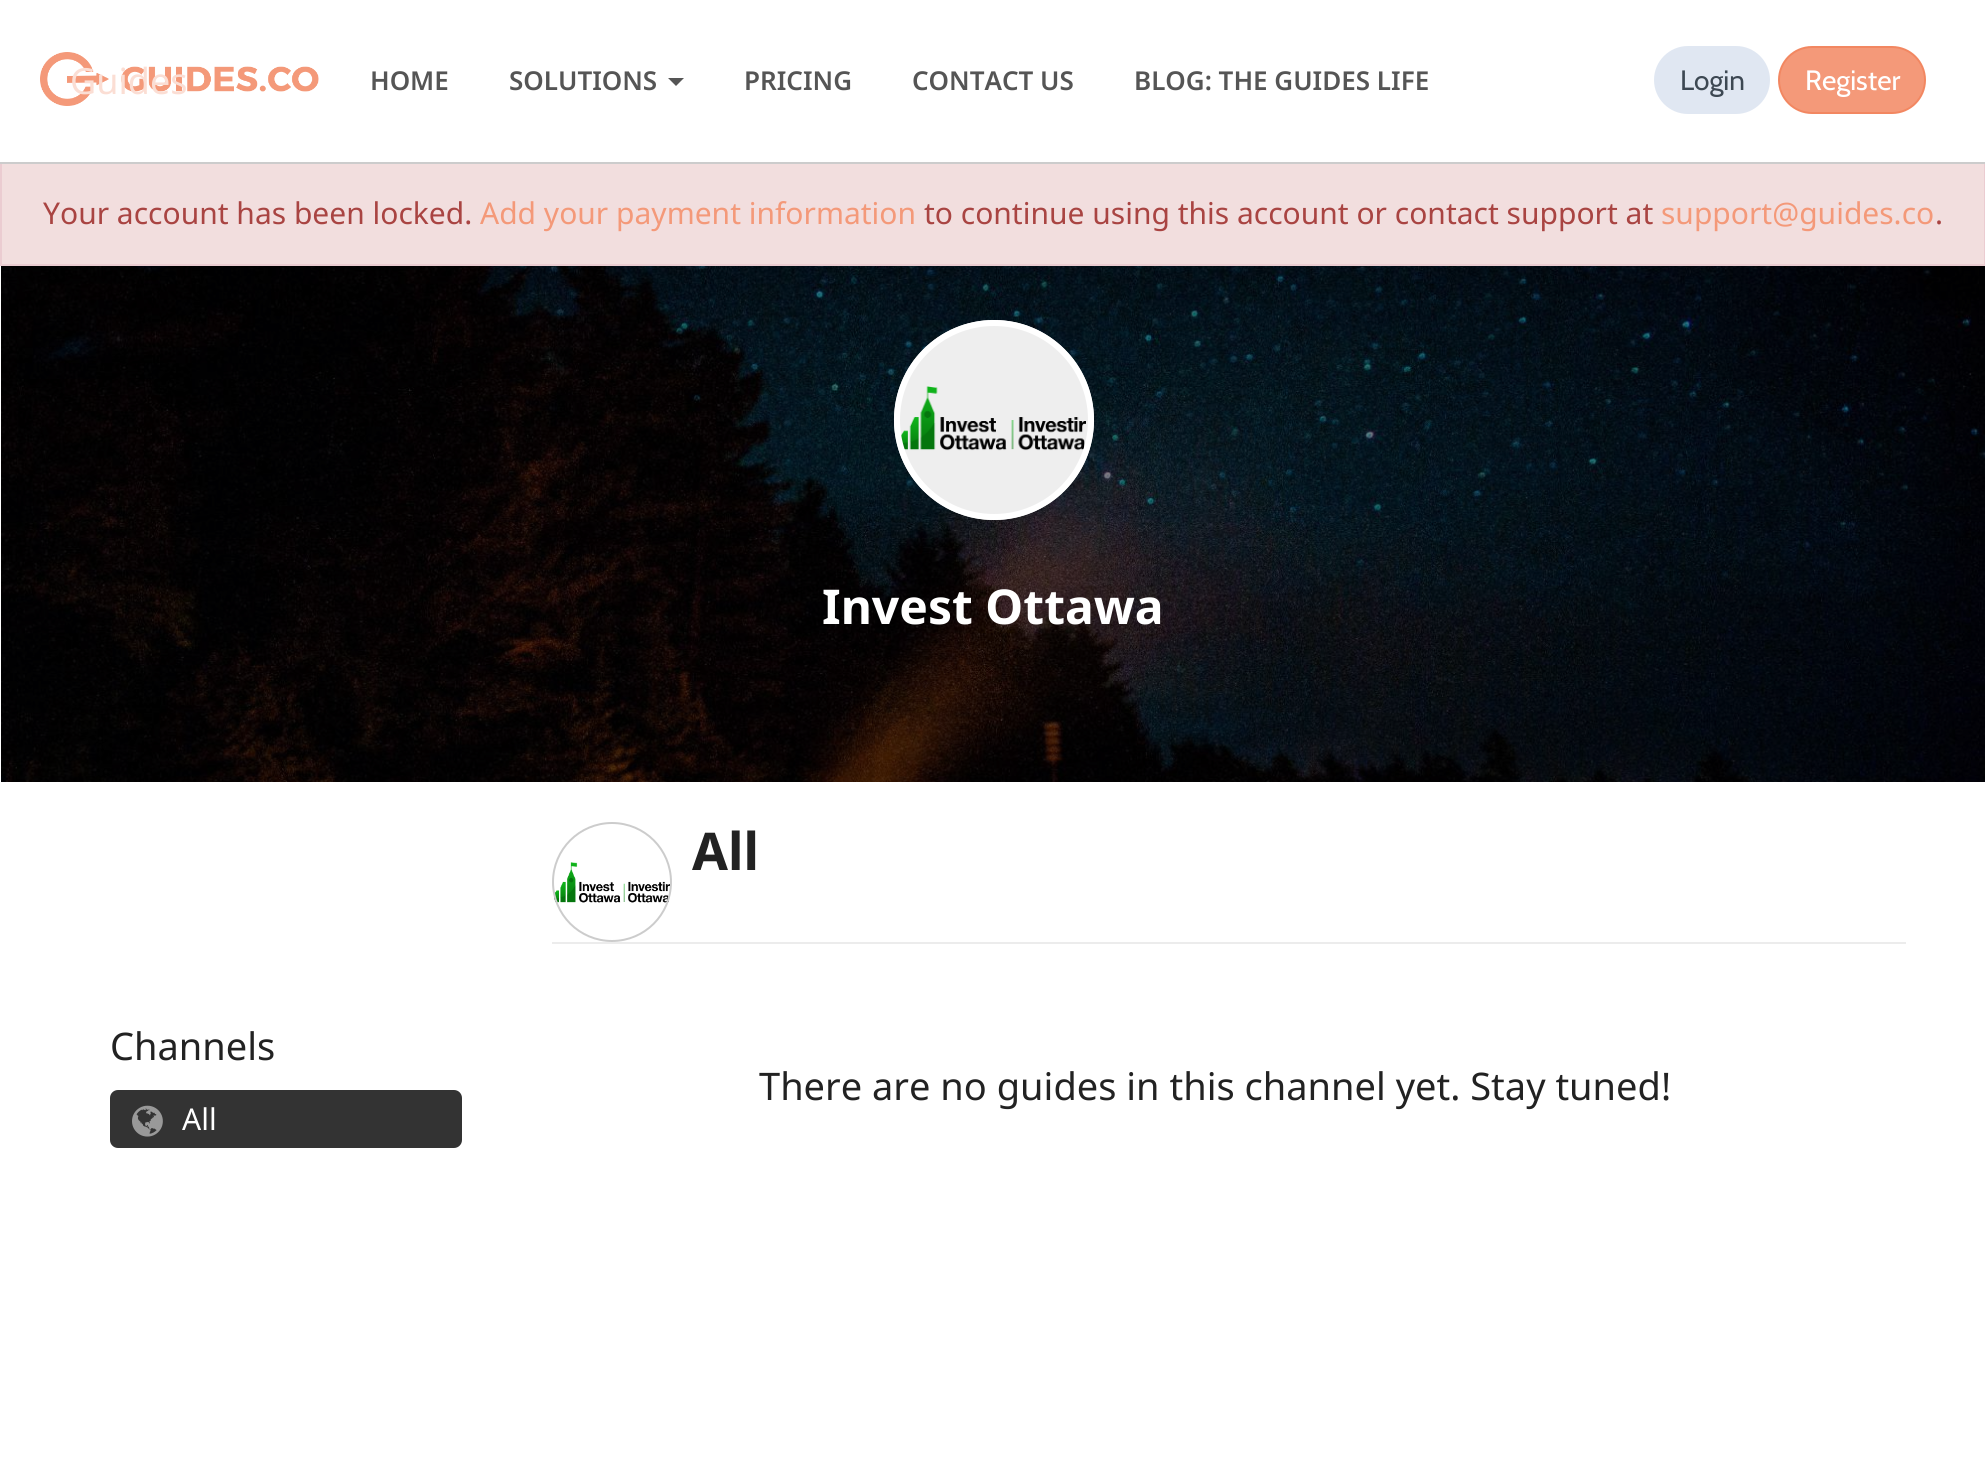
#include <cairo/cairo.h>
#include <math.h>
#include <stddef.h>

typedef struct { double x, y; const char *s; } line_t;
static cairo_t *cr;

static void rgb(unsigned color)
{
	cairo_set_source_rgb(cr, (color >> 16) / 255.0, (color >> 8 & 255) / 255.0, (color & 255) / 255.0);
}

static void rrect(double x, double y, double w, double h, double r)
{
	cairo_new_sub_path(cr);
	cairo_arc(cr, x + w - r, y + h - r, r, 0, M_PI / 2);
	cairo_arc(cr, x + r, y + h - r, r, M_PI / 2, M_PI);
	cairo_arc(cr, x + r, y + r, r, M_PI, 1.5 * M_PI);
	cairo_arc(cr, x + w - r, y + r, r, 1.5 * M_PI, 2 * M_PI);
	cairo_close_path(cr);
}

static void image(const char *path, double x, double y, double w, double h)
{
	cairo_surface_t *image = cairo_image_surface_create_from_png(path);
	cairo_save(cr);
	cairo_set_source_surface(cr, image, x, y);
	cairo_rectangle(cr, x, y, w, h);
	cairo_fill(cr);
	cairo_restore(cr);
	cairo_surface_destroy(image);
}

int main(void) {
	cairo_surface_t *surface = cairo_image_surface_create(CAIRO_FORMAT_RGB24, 1985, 1474);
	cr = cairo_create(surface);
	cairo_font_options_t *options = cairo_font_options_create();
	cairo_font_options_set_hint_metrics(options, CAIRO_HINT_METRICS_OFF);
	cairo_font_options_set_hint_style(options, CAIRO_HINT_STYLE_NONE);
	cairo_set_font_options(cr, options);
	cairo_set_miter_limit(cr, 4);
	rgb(0xffffff);
	cairo_paint(cr);
	rgb(0xf2dede);
	cairo_rectangle(cr, 2, 164, 1982, 100);
	cairo_fill(cr);
	cairo_rectangle(cr, 1, 161, 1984, 104);
	rgb(0xebccd1);
	cairo_stroke(cr);
	rgb(0xffffff);
	cairo_rectangle(cr, 0, 160, 1985, 2);
	cairo_fill(cr);
	rgb(0xcccccc);
	cairo_rectangle(cr, 0, 162, 1985, 2);
	cairo_fill(cr);
	image("img/1.png", 40, 52, 279, 54);
	rgb(0x555555);
	cairo_new_path(cr);
	cairo_move_to(cr, 668, 78);
	cairo_line_to(cr, 684, 78);
	cairo_line_to(cr, 676, 86);
	cairo_close_path(cr);
	cairo_fill(cr);
	rgb(0xe0e7f2);
	rrect(1654, 46, 116, 68, 34);
	cairo_fill(cr);
	rgb(0xf49979);
	rrect(1779, 47, 146, 66, 33);
	cairo_fill_preserve(cr);
	rgb(0xf28761);
	cairo_stroke(cr);
	image("img/2.png", 1, 266, 1984, 516);
	rgb(0xeeeeee);
	cairo_arc(cr, 994, 420, 100, 0, 2 * M_PI);
	cairo_fill(cr);
	image("img/3.png", 901, 386, 185, 65);
	cairo_arc(cr, 994, 420, 97, 0, 2 * M_PI);
	rgb(0xffffff);
	cairo_set_line_width(cr, 6);
	cairo_stroke(cr);
	rgb(0xececec);
	cairo_rectangle(cr, 552, 942, 1354, 2);
	cairo_fill(cr);
	image("img/4.png", 554, 862, 116, 41);
	cairo_arc(cr, 612, 882, 59, 0, 2 * M_PI);
	rgb(0xcccccc);
	cairo_set_line_width(cr, 2);
	cairo_stroke(cr);
	rgb(0x333333);
	rrect(110, 1090, 352, 58, 8);
	cairo_fill(cr);
	image("img/5.png", 132, 1105, 31, 32);
	cairo_select_font_face(cr, "Noto Sans", CAIRO_FONT_SLANT_NORMAL, CAIRO_FONT_WEIGHT_NORMAL);
	cairo_set_font_size(cr, 36);
	rgb(0xfbded4);
	cairo_move_to(cr, 70, 94);
	cairo_show_text(cr, "Guides");
	cairo_select_font_face(cr, "Noto Sans SemiBold", CAIRO_FONT_SLANT_NORMAL, CAIRO_FONT_WEIGHT_NORMAL);
	cairo_set_font_size(cr, 26);
	rgb(0x555555);
	{
		static const line_t items[] = {
			{370, 90, "HOME"},
			{509, 90, "SOLUTIONS"},
			{744, 90, "PRICING"},
			{912, 90, "CONTACT US"},
			{1134, 90, "BLOG: THE GUIDES LIFE"},
		};
		for (size_t i = 0; i < sizeof items / sizeof *items; i++) {
			cairo_move_to(cr, items[i].x, items[i].y);
			cairo_show_text(cr, items[i].s);
		}
	}
	cairo_select_font_face(cr, "Cabin", CAIRO_FONT_SLANT_NORMAL, CAIRO_FONT_WEIGHT_NORMAL);
	cairo_set_font_size(cr, 28);
	rgb(0x3d4853);
	cairo_move_to(cr, 1680, 90);
	cairo_show_text(cr, "Login");
	rgb(0xffffff);
	cairo_move_to(cr, 1805, 90);
	cairo_show_text(cr, "Register");
	cairo_select_font_face(cr, "Noto Sans", CAIRO_FONT_SLANT_NORMAL, CAIRO_FONT_WEIGHT_NORMAL);
	cairo_set_font_size(cr, 30);
	rgb(0xa94442);
	cairo_move_to(cr, 43, 224);
	cairo_show_text(cr, "Your account has been locked.");
	rgb(0xf49979);
	cairo_move_to(cr, 480, 224);
	cairo_show_text(cr, "Add your payment information");
	rgb(0xa94442);
	cairo_move_to(cr, 924, 224);
	cairo_show_text(cr, "to continue using this account or contact support at");
	rgb(0xf49979);
	cairo_move_to(cr, 1661, 224);
	cairo_show_text(cr, "support@guides.co");
	rgb(0xa94442);
	cairo_move_to(cr, 1935, 224);
	cairo_show_text(cr, ".");
	cairo_select_font_face(cr, "Noto Sans", CAIRO_FONT_SLANT_NORMAL, CAIRO_FONT_WEIGHT_BOLD);
	cairo_set_font_size(cr, 48);
	rgb(0xffffff);
	cairo_move_to(cr, 822, 624);
	cairo_show_text(cr, "Invest Ottawa");
	cairo_set_font_size(cr, 52);
	rgb(0x222222);
	cairo_move_to(cr, 692, 870);
	cairo_show_text(cr, "All");
	cairo_select_font_face(cr, "Noto Sans", CAIRO_FONT_SLANT_NORMAL, CAIRO_FONT_WEIGHT_NORMAL);
	cairo_set_font_size(cr, 38);
	cairo_move_to(cr, 110, 1060);
	cairo_show_text(cr, "Channels");
	cairo_set_font_size(cr, 30);
	rgb(0xffffff);
	cairo_move_to(cr, 182, 1130);
	cairo_show_text(cr, "All");
	cairo_set_font_size(cr, 38);
	rgb(0x222222);
	cairo_move_to(cr, 759, 1100);
	cairo_show_text(cr, "There are no guides in this channel yet. Stay tuned!");
	cairo_surface_write_to_png(surface, "page.png");
	cairo_font_options_destroy(options);
	cairo_destroy(cr);
	cairo_surface_destroy(surface);
	return 0;
}
